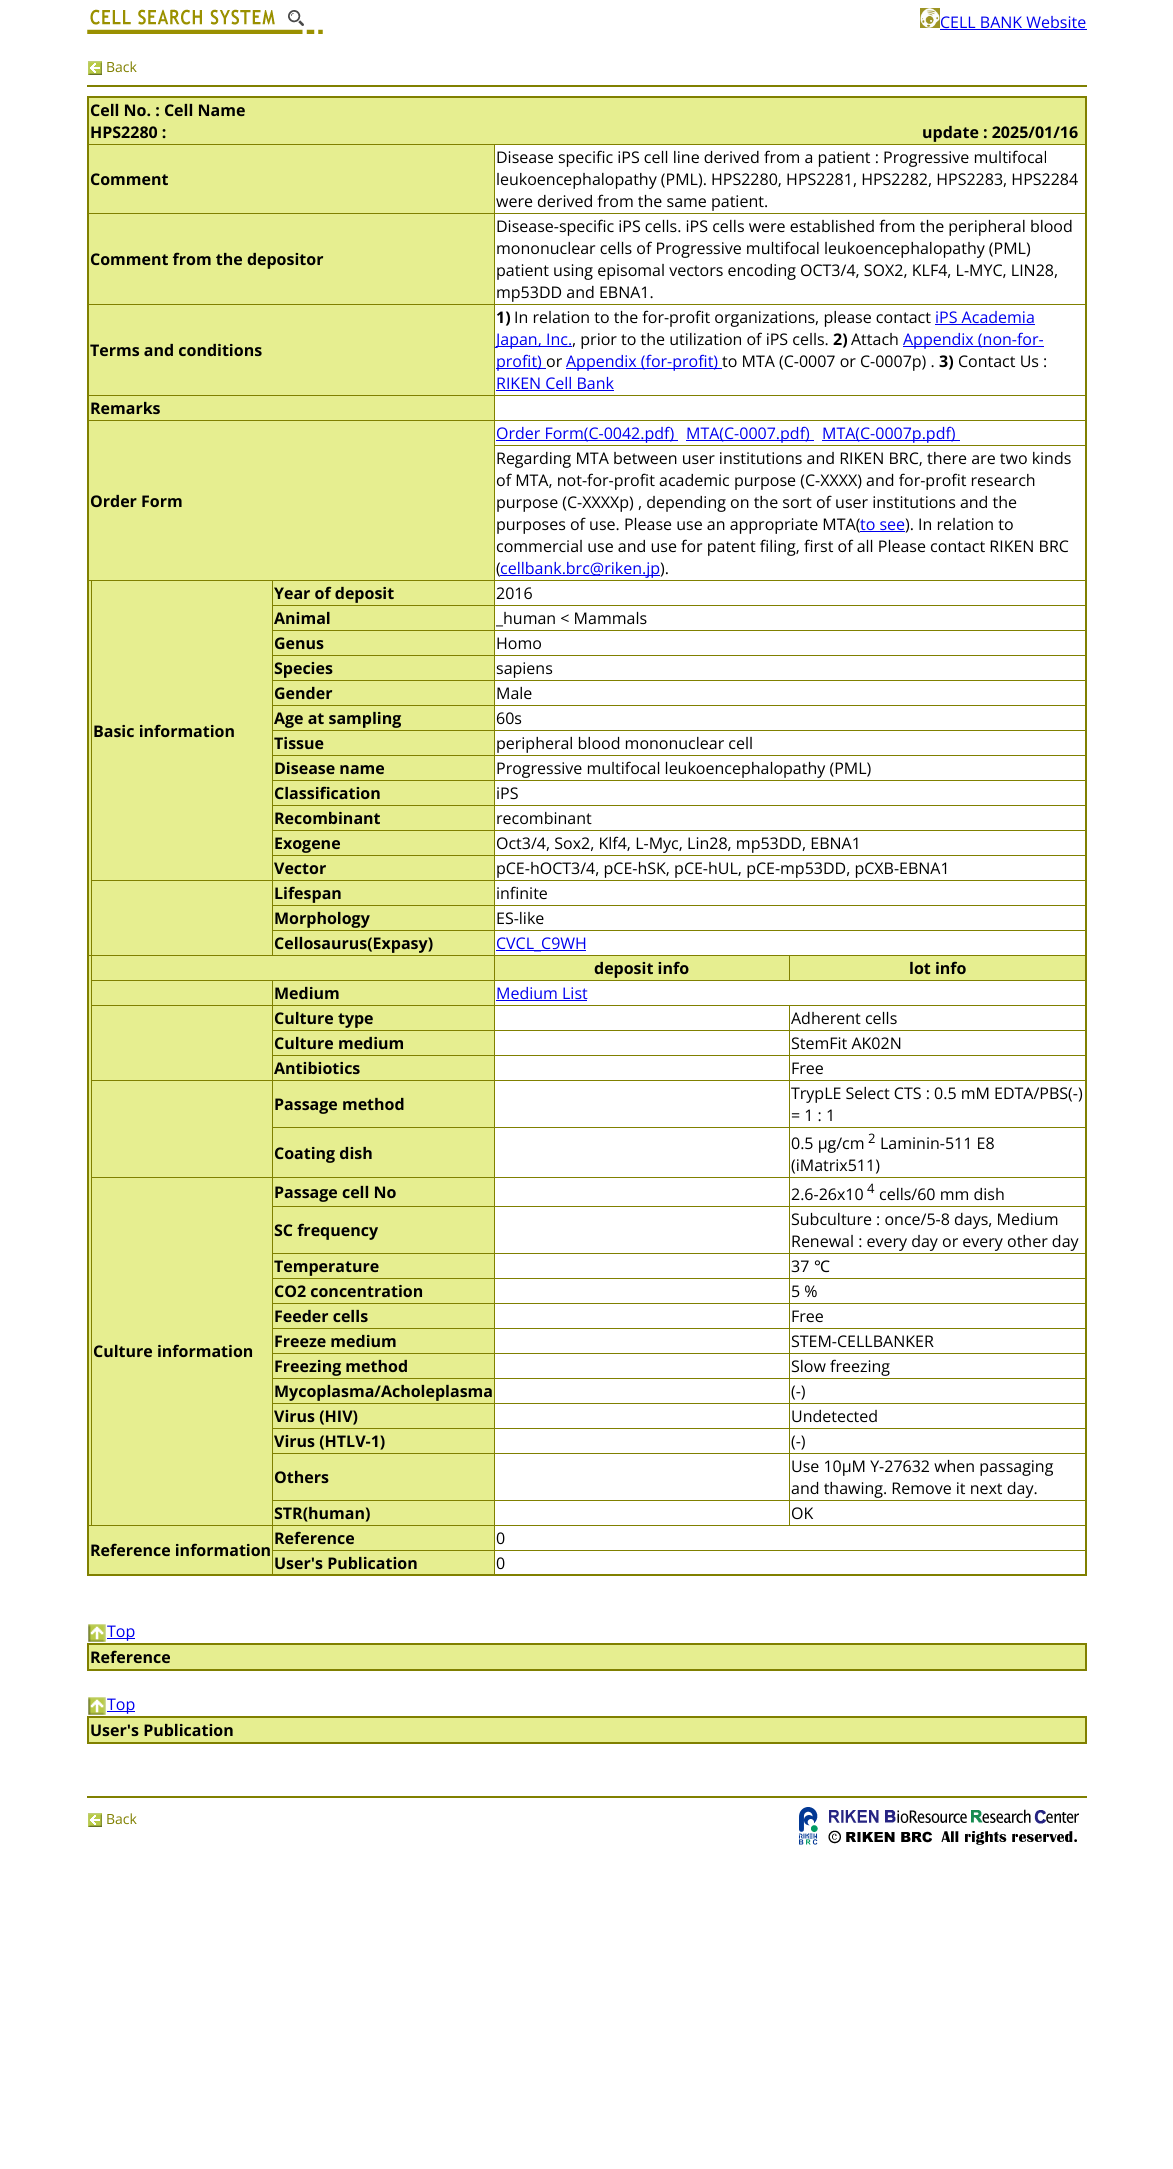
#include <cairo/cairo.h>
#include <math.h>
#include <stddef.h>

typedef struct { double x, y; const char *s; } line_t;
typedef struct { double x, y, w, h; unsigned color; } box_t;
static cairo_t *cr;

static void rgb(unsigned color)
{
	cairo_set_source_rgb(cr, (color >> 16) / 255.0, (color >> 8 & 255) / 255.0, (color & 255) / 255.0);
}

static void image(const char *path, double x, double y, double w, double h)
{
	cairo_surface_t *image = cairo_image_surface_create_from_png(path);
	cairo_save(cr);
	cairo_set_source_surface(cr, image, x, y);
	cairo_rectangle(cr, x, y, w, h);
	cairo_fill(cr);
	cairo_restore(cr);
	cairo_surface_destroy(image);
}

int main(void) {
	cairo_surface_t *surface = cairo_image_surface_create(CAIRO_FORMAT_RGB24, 1173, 2169);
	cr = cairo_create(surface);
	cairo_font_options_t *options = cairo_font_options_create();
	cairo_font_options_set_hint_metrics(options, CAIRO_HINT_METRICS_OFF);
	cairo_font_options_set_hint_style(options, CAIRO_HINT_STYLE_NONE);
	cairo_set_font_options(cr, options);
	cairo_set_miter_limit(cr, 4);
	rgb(0xffffff);
	cairo_paint(cr);
	image("img/1.png", 87, 9, 236, 25);
	image("img/2.png", 920, 8, 20, 20);
	rgb(0x0000ee);
	cairo_rectangle(cr, 940, 29, 147, 1);
	cairo_fill(cr);
	image("img/3.png", 88, 61, 14, 14);
	{
		static const box_t items[] = {
			{87, 85, 1000, 2, 0x808000},
			{87, 96, 1000, 2, 0x808000},
			{494, 144, 592, 1, 0x808000},
			{494, 213, 592, 1, 0x808000},
			{494, 304, 592, 1, 0x808000},
			{494, 395, 592, 1, 0x808000},
			{494, 420, 592, 1, 0x808000},
			{494, 445, 592, 1, 0x808000},
			{494, 580, 592, 1, 0x808000},
			{494, 605, 592, 1, 0x808000},
			{494, 630, 592, 1, 0x808000},
			{494, 655, 592, 1, 0x808000},
			{494, 680, 592, 1, 0x808000},
			{494, 705, 592, 1, 0x808000},
			{494, 730, 592, 1, 0x808000},
			{494, 755, 592, 1, 0x808000},
			{494, 780, 592, 1, 0x808000},
			{494, 805, 592, 1, 0x808000},
			{494, 830, 592, 1, 0x808000},
			{494, 855, 592, 1, 0x808000},
			{494, 880, 592, 1, 0x808000},
			{494, 905, 592, 1, 0x808000},
			{494, 930, 592, 1, 0x808000},
			{789, 955, 297, 1, 0x808000},
			{494, 980, 592, 1, 0x808000},
			{789, 1005, 297, 1, 0x808000},
			{789, 1030, 297, 1, 0x808000},
			{789, 1055, 297, 1, 0x808000},
			{789, 1080, 297, 1, 0x808000},
			{789, 1127, 297, 1, 0x808000},
			{789, 1177, 297, 1, 0x808000},
			{789, 1206, 297, 1, 0x808000},
			{789, 1253, 297, 1, 0x808000},
			{789, 1278, 297, 1, 0x808000},
			{789, 1303, 297, 1, 0x808000},
			{789, 1328, 297, 1, 0x808000},
			{789, 1353, 297, 1, 0x808000},
			{789, 1378, 297, 1, 0x808000},
			{789, 1403, 297, 1, 0x808000},
			{789, 1428, 297, 1, 0x808000},
			{789, 1453, 297, 1, 0x808000},
			{789, 1500, 297, 1, 0x808000},
			{494, 1525, 592, 1, 0x808000},
			{494, 1550, 592, 1, 0x808000},
			{1085, 96, 2, 1480, 0x808000},
			{494, 1550, 1, 26, 0x808000},
			{272, 1550, 223, 1, 0x808000},
			{272, 1550, 1, 26, 0x808000},
			{87, 1574, 1000, 2, 0x808000},
			{789, 955, 1, 26, 0x808000},
			{494, 955, 296, 1, 0x808000},
			{789, 1500, 1, 26, 0x808000},
			{494, 1500, 296, 1, 0x808000},
			{789, 1453, 1, 48, 0x808000},
			{494, 1453, 296, 1, 0x808000},
			{789, 1428, 1, 26, 0x808000},
			{494, 1428, 296, 1, 0x808000},
			{789, 1403, 1, 26, 0x808000},
			{494, 1403, 296, 1, 0x808000},
			{789, 1378, 1, 26, 0x808000},
			{494, 1378, 296, 1, 0x808000},
			{789, 1353, 1, 26, 0x808000},
			{494, 1353, 296, 1, 0x808000},
			{789, 1328, 1, 26, 0x808000},
			{494, 1328, 296, 1, 0x808000},
			{789, 1303, 1, 26, 0x808000},
			{494, 1303, 296, 1, 0x808000},
			{789, 1278, 1, 26, 0x808000},
			{494, 1278, 296, 1, 0x808000},
			{789, 1253, 1, 26, 0x808000},
			{494, 1253, 296, 1, 0x808000},
			{789, 1206, 1, 48, 0x808000},
			{494, 1206, 296, 1, 0x808000},
			{789, 1177, 1, 30, 0x808000},
			{494, 1177, 296, 1, 0x808000},
			{789, 1127, 1, 51, 0x808000},
			{494, 1127, 296, 1, 0x808000},
			{789, 1080, 1, 48, 0x808000},
			{494, 1080, 296, 1, 0x808000},
			{789, 1055, 1, 26, 0x808000},
			{494, 1055, 296, 1, 0x808000},
			{789, 1030, 1, 26, 0x808000},
			{494, 1030, 296, 1, 0x808000},
			{789, 1005, 1, 26, 0x808000},
			{494, 1005, 296, 1, 0x808000},
			{494, 1525, 1, 26, 0x808000},
			{272, 1525, 223, 1, 0x808000},
			{494, 1500, 1, 26, 0x808000},
			{272, 1500, 223, 1, 0x808000},
			{494, 1453, 1, 48, 0x808000},
			{272, 1453, 223, 1, 0x808000},
			{494, 1428, 1, 26, 0x808000},
			{272, 1428, 223, 1, 0x808000},
			{494, 1403, 1, 26, 0x808000},
			{272, 1403, 223, 1, 0x808000},
			{494, 1378, 1, 26, 0x808000},
			{272, 1378, 223, 1, 0x808000},
			{494, 1353, 1, 26, 0x808000},
			{272, 1353, 223, 1, 0x808000},
			{494, 1328, 1, 26, 0x808000},
			{272, 1328, 223, 1, 0x808000},
			{494, 1303, 1, 26, 0x808000},
			{272, 1303, 223, 1, 0x808000},
			{494, 1278, 1, 26, 0x808000},
			{272, 1278, 223, 1, 0x808000},
			{494, 1253, 1, 26, 0x808000},
			{272, 1253, 223, 1, 0x808000},
			{494, 1206, 1, 48, 0x808000},
			{272, 1206, 223, 1, 0x808000},
			{494, 1177, 1, 30, 0x808000},
			{272, 1177, 223, 1, 0x808000},
			{494, 1127, 1, 51, 0x808000},
			{272, 1127, 223, 1, 0x808000},
			{494, 1080, 1, 48, 0x808000},
			{272, 1080, 223, 1, 0x808000},
			{494, 1055, 1, 26, 0x808000},
			{272, 1055, 223, 1, 0x808000},
			{494, 1030, 1, 26, 0x808000},
			{272, 1030, 223, 1, 0x808000},
			{494, 1005, 1, 26, 0x808000},
			{272, 1005, 223, 1, 0x808000},
			{494, 980, 1, 26, 0x808000},
			{272, 980, 223, 1, 0x808000},
			{494, 955, 1, 26, 0x808000},
			{91, 955, 404, 1, 0x808000},
			{494, 930, 1, 26, 0x808000},
			{272, 930, 223, 1, 0x808000},
			{494, 905, 1, 26, 0x808000},
			{272, 905, 223, 1, 0x808000},
			{494, 880, 1, 26, 0x808000},
			{272, 880, 223, 1, 0x808000},
			{494, 855, 1, 26, 0x808000},
			{272, 855, 223, 1, 0x808000},
			{494, 830, 1, 26, 0x808000},
			{272, 830, 223, 1, 0x808000},
			{494, 805, 1, 26, 0x808000},
			{272, 805, 223, 1, 0x808000},
			{494, 780, 1, 26, 0x808000},
			{272, 780, 223, 1, 0x808000},
			{494, 755, 1, 26, 0x808000},
			{272, 755, 223, 1, 0x808000},
			{494, 730, 1, 26, 0x808000},
			{272, 730, 223, 1, 0x808000},
			{494, 705, 1, 26, 0x808000},
			{272, 705, 223, 1, 0x808000},
			{494, 680, 1, 26, 0x808000},
			{272, 680, 223, 1, 0x808000},
			{494, 655, 1, 26, 0x808000},
			{272, 655, 223, 1, 0x808000},
			{494, 630, 1, 26, 0x808000},
			{272, 630, 223, 1, 0x808000},
			{494, 605, 1, 26, 0x808000},
			{272, 605, 223, 1, 0x808000},
			{494, 580, 1, 26, 0x808000},
			{272, 580, 223, 1, 0x808000},
			{494, 445, 1, 136, 0x808000},
			{494, 420, 1, 26, 0x808000},
			{87, 420, 408, 1, 0x808000},
			{494, 395, 1, 26, 0x808000},
			{87, 395, 408, 1, 0x808000},
			{494, 304, 1, 92, 0x808000},
			{87, 304, 408, 1, 0x808000},
			{494, 213, 1, 92, 0x808000},
			{87, 213, 408, 1, 0x808000},
			{494, 144, 1, 70, 0x808000},
			{87, 144, 408, 1, 0x808000},
			{272, 930, 1, 26, 0x808000},
			{272, 905, 1, 26, 0x808000},
			{272, 880, 1, 26, 0x808000},
			{91, 880, 182, 1, 0x808000},
			{272, 855, 1, 26, 0x808000},
			{272, 830, 1, 26, 0x808000},
			{272, 805, 1, 26, 0x808000},
			{272, 780, 1, 26, 0x808000},
			{272, 755, 1, 26, 0x808000},
			{272, 730, 1, 26, 0x808000},
			{272, 705, 1, 26, 0x808000},
			{272, 680, 1, 26, 0x808000},
			{272, 655, 1, 26, 0x808000},
			{272, 630, 1, 26, 0x808000},
			{272, 605, 1, 26, 0x808000},
			{272, 580, 1, 26, 0x808000},
			{91, 580, 182, 1, 0x808000},
			{89, 581, 2, 944, 0xe6ee90},
			{272, 1525, 1, 26, 0x808000},
			{87, 1525, 186, 1, 0x808000},
			{272, 1500, 1, 26, 0x808000},
			{272, 1453, 1, 48, 0x808000},
			{272, 1428, 1, 26, 0x808000},
			{272, 1403, 1, 26, 0x808000},
			{272, 1378, 1, 26, 0x808000},
			{272, 1353, 1, 26, 0x808000},
			{272, 1328, 1, 26, 0x808000},
			{272, 1303, 1, 26, 0x808000},
			{272, 1278, 1, 26, 0x808000},
			{272, 1253, 1, 26, 0x808000},
			{272, 1206, 1, 48, 0x808000},
			{272, 1177, 1, 30, 0x808000},
			{91, 1177, 182, 1, 0x808000},
			{272, 1127, 1, 51, 0x808000},
			{272, 1080, 1, 48, 0x808000},
			{91, 1080, 182, 1, 0x808000},
			{272, 1055, 1, 26, 0x808000},
			{272, 1030, 1, 26, 0x808000},
			{272, 1005, 1, 26, 0x808000},
			{91, 1005, 182, 1, 0x808000},
			{272, 980, 1, 26, 0x808000},
			{91, 980, 182, 1, 0x808000},
			{91, 1177, 1, 349, 0x808000},
			{91, 1080, 1, 98, 0x808000},
			{91, 1005, 1, 76, 0x808000},
			{91, 980, 1, 26, 0x808000},
			{91, 955, 1, 26, 0x808000},
			{87, 955, 5, 1, 0x808000},
			{91, 880, 1, 76, 0x808000},
			{91, 580, 1, 301, 0x808000},
			{87, 580, 5, 1, 0x808000},
			{87, 96, 2, 1480, 0x808000},
			{89, 98, 996, 46, 0xe6ee90},
			{89, 145, 405, 68, 0xe6ee90},
			{89, 214, 405, 90, 0xe6ee90},
			{89, 305, 405, 90, 0xe6ee90},
			{935, 324, 100, 1, 0x0000ee},
			{496, 346, 76, 1, 0x0000ee},
			{903, 346, 141, 1, 0x0000ee},
			{496, 368, 50, 1, 0x0000ee},
			{566, 368, 156, 1, 0x0000ee},
			{496, 390, 118, 1, 0x0000ee},
			{89, 396, 405, 24, 0xe6ee90},
			{496, 440, 182, 1, 0x0000ee},
			{686, 440, 128, 1, 0x0000ee},
			{822, 440, 138, 1, 0x0000ee},
			{89, 421, 405, 159, 0xe6ee90},
			{860, 531, 45, 1, 0x0000ee},
			{500, 575, 160, 1, 0x0000ee},
			{273, 581, 221, 24, 0xe6ee90},
			{92, 581, 180, 299, 0xe6ee90},
			{273, 606, 221, 24, 0xe6ee90},
			{273, 631, 221, 24, 0xe6ee90},
			{273, 656, 221, 24, 0xe6ee90},
			{273, 681, 221, 24, 0xe6ee90},
			{273, 706, 221, 24, 0xe6ee90},
			{273, 731, 221, 24, 0xe6ee90},
			{273, 756, 221, 24, 0xe6ee90},
			{273, 781, 221, 24, 0xe6ee90},
			{273, 806, 221, 24, 0xe6ee90},
			{273, 831, 221, 24, 0xe6ee90},
			{273, 856, 221, 24, 0xe6ee90},
			{92, 881, 180, 74, 0xe6ee90},
			{273, 881, 221, 24, 0xe6ee90},
			{273, 906, 221, 24, 0xe6ee90},
			{273, 931, 221, 24, 0xe6ee90},
			{496, 950, 90, 1, 0x0000ee},
			{92, 956, 402, 24, 0xe6ee90},
			{495, 956, 294, 24, 0xe6ee90},
			{790, 956, 295, 24, 0xe6ee90},
			{92, 981, 180, 24, 0xe6ee90},
			{273, 981, 221, 24, 0xe6ee90},
			{496, 1000, 91, 1, 0x0000ee},
			{92, 1006, 180, 74, 0xe6ee90},
			{273, 1006, 221, 24, 0xe6ee90},
			{273, 1031, 221, 24, 0xe6ee90},
			{273, 1056, 221, 24, 0xe6ee90},
			{92, 1081, 180, 96, 0xe6ee90},
			{273, 1081, 221, 46, 0xe6ee90},
			{273, 1128, 221, 49, 0xe6ee90},
			{273, 1178, 221, 28, 0xe6ee90},
			{92, 1178, 180, 347, 0xe6ee90},
			{273, 1207, 221, 46, 0xe6ee90},
			{273, 1254, 221, 24, 0xe6ee90},
			{273, 1279, 221, 24, 0xe6ee90},
			{273, 1304, 221, 24, 0xe6ee90},
			{273, 1329, 221, 24, 0xe6ee90},
			{273, 1354, 221, 24, 0xe6ee90},
			{273, 1379, 221, 24, 0xe6ee90},
			{273, 1404, 221, 24, 0xe6ee90},
			{273, 1429, 221, 24, 0xe6ee90},
			{273, 1454, 221, 46, 0xe6ee90},
			{273, 1501, 221, 24, 0xe6ee90},
			{273, 1526, 221, 24, 0xe6ee90},
			{89, 1526, 183, 48, 0xe6ee90},
			{273, 1551, 221, 23, 0xe6ee90},
		};
		for (size_t i = 0; i < sizeof items / sizeof *items; i++) {
			rgb(items[i].color);
			cairo_rectangle(cr, items[i].x, items[i].y, items[i].w, items[i].h);
			cairo_fill(cr);
		}
	}
	image("img/4.png", 88, 1624, 18, 18);
	{
		static const box_t items[] = {
			{107, 1638, 28, 1, 0x0000ee},
			{87, 1643, 1000, 2, 0x808000},
			{1085, 1643, 2, 28, 0x808000},
			{87, 1669, 1000, 2, 0x808000},
			{87, 1643, 2, 28, 0x808000},
			{89, 1645, 996, 24, 0xe6ee90},
		};
		for (size_t i = 0; i < sizeof items / sizeof *items; i++) {
			rgb(items[i].color);
			cairo_rectangle(cr, items[i].x, items[i].y, items[i].w, items[i].h);
			cairo_fill(cr);
		}
	}
	image("img/4.png", 88, 1697, 18, 18);
	{
		static const box_t items[] = {
			{107, 1711, 28, 1, 0x0000ee},
			{87, 1716, 1000, 2, 0x808000},
			{1085, 1716, 2, 28, 0x808000},
			{87, 1742, 1000, 2, 0x808000},
			{87, 1716, 2, 28, 0x808000},
			{89, 1718, 996, 24, 0xe6ee90},
			{87, 1796, 1000, 2, 0x808000},
		};
		for (size_t i = 0; i < sizeof items / sizeof *items; i++) {
			rgb(items[i].color);
			cairo_rectangle(cr, items[i].x, items[i].y, items[i].w, items[i].h);
			cairo_fill(cr);
		}
	}
	image("img/3.png", 88, 1813, 14, 14);
	image("img/5.png", 799, 1807, 280, 38);
	cairo_select_font_face(cr, "Open Sans", CAIRO_FONT_SLANT_NORMAL, CAIRO_FONT_WEIGHT_NORMAL);
	cairo_set_font_size(cr, 16);
	rgb(0x0000ee);
	cairo_move_to(cr, 940, 28);
	cairo_show_text(cr, "CELL BANK Website");
	cairo_set_font_size(cr, 14);
	rgb(0x808000);
	cairo_move_to(cr, 106, 72);
	cairo_show_text(cr, "Back");
	cairo_select_font_face(cr, "Open Sans", CAIRO_FONT_SLANT_NORMAL, CAIRO_FONT_WEIGHT_BOLD);
	cairo_set_font_size(cr, 16);
	rgb(0x000000);
	{
		static const line_t items[] = {
			{90, 116, "Cell No. : Cell Name"},
			{90, 138, "HPS2280 :"},
			{922, 138, "update : 2025/01/16"},
			{90, 185, "Comment"},
		};
		for (size_t i = 0; i < sizeof items / sizeof *items; i++) {
			cairo_move_to(cr, items[i].x, items[i].y);
			cairo_show_text(cr, items[i].s);
		}
	}
	cairo_select_font_face(cr, "Open Sans", CAIRO_FONT_SLANT_NORMAL, CAIRO_FONT_WEIGHT_NORMAL);
	{
		static const line_t items[] = {
			{496, 163, "Disease specific iPS cell line derived from a patient : Progressive multifocal"},
			{496, 185, "leukoencephalopathy (PML). HPS2280, HPS2281, HPS2282, HPS2283, HPS2284"},
			{496, 207, "were derived from the same patient."},
		};
		for (size_t i = 0; i < sizeof items / sizeof *items; i++) {
			cairo_move_to(cr, items[i].x, items[i].y);
			cairo_show_text(cr, items[i].s);
		}
	}
	cairo_select_font_face(cr, "Open Sans", CAIRO_FONT_SLANT_NORMAL, CAIRO_FONT_WEIGHT_BOLD);
	cairo_move_to(cr, 90, 265);
	cairo_show_text(cr, "Comment from the depositor");
	cairo_select_font_face(cr, "Open Sans", CAIRO_FONT_SLANT_NORMAL, CAIRO_FONT_WEIGHT_NORMAL);
	{
		static const line_t items[] = {
			{496, 232, "Disease-specific iPS cells. iPS cells were established from the peripheral blood"},
			{496, 254, "mononuclear cells of Progressive multifocal leukoencephalopathy (PML)"},
			{496, 276, "patient using episomal vectors encoding OCT3/4, SOX2, KLF4, L-MYC, LIN28,"},
			{496, 298, "mp53DD and EBNA1."},
		};
		for (size_t i = 0; i < sizeof items / sizeof *items; i++) {
			cairo_move_to(cr, items[i].x, items[i].y);
			cairo_show_text(cr, items[i].s);
		}
	}
	cairo_select_font_face(cr, "Open Sans", CAIRO_FONT_SLANT_NORMAL, CAIRO_FONT_WEIGHT_BOLD);
	cairo_move_to(cr, 90, 356);
	cairo_show_text(cr, "Terms and conditions");
	cairo_move_to(cr, 496, 323);
	cairo_show_text(cr, "1)");
	cairo_select_font_face(cr, "Open Sans", CAIRO_FONT_SLANT_NORMAL, CAIRO_FONT_WEIGHT_NORMAL);
	cairo_move_to(cr, 514, 323);
	cairo_show_text(cr, "In relation to the for-profit organizations, please contact");
	rgb(0x0000ee);
	cairo_move_to(cr, 935, 323);
	cairo_show_text(cr, "iPS Academia");
	cairo_move_to(cr, 496, 345);
	cairo_show_text(cr, "Japan, Inc.");
	rgb(0x000000);
	cairo_move_to(cr, 572, 345);
	cairo_show_text(cr, ", prior to the utilization of iPS cells.");
	cairo_select_font_face(cr, "Open Sans", CAIRO_FONT_SLANT_NORMAL, CAIRO_FONT_WEIGHT_BOLD);
	cairo_move_to(cr, 833, 345);
	cairo_show_text(cr, "2)");
	cairo_select_font_face(cr, "Open Sans", CAIRO_FONT_SLANT_NORMAL, CAIRO_FONT_WEIGHT_NORMAL);
	cairo_move_to(cr, 851, 345);
	cairo_show_text(cr, "Attach");
	rgb(0x0000ee);
	cairo_move_to(cr, 903, 345);
	cairo_show_text(cr, "Appendix (non-for-");
	cairo_move_to(cr, 496, 367);
	cairo_show_text(cr, "profit)");
	rgb(0x000000);
	cairo_move_to(cr, 546, 367);
	cairo_show_text(cr, "or");
	rgb(0x0000ee);
	cairo_move_to(cr, 566, 367);
	cairo_show_text(cr, "Appendix (for-profit)");
	rgb(0x000000);
	cairo_move_to(cr, 722, 367);
	cairo_show_text(cr, "to MTA (C-0007 or C-0007p) .");
	cairo_select_font_face(cr, "Open Sans", CAIRO_FONT_SLANT_NORMAL, CAIRO_FONT_WEIGHT_BOLD);
	cairo_move_to(cr, 939, 367);
	cairo_show_text(cr, "3)");
	cairo_select_font_face(cr, "Open Sans", CAIRO_FONT_SLANT_NORMAL, CAIRO_FONT_WEIGHT_NORMAL);
	cairo_move_to(cr, 958, 367);
	cairo_show_text(cr, "Contact Us :");
	rgb(0x0000ee);
	cairo_move_to(cr, 496, 389);
	cairo_show_text(cr, "RIKEN Cell Bank");
	cairo_select_font_face(cr, "Open Sans", CAIRO_FONT_SLANT_NORMAL, CAIRO_FONT_WEIGHT_BOLD);
	rgb(0x000000);
	cairo_move_to(cr, 90, 414);
	cairo_show_text(cr, "Remarks");
	cairo_select_font_face(cr, "Open Sans", CAIRO_FONT_SLANT_NORMAL, CAIRO_FONT_WEIGHT_NORMAL);
	rgb(0x0000ee);
	{
		static const line_t items[] = {
			{496, 439, "Order Form(C-0042.pdf)"},
			{686, 439, "MTA(C-0007.pdf)"},
			{822, 439, "MTA(C-0007p.pdf)"},
		};
		for (size_t i = 0; i < sizeof items / sizeof *items; i++) {
			cairo_move_to(cr, items[i].x, items[i].y);
			cairo_show_text(cr, items[i].s);
		}
	}
	cairo_select_font_face(cr, "Open Sans", CAIRO_FONT_SLANT_NORMAL, CAIRO_FONT_WEIGHT_BOLD);
	rgb(0x000000);
	cairo_move_to(cr, 90, 507);
	cairo_show_text(cr, "Order Form");
	cairo_select_font_face(cr, "Open Sans", CAIRO_FONT_SLANT_NORMAL, CAIRO_FONT_WEIGHT_NORMAL);
	{
		static const line_t items[] = {
			{496, 464, "Regarding MTA between user institutions and RIKEN BRC, there are two kinds"},
			{496, 486, "of MTA, not-for-profit academic purpose (C-XXXX) and for-profit research"},
			{496, 508, "purpose (C-XXXXp) , depending on the sort of user institutions and the"},
			{496, 530, "purposes of use. Please use an appropriate MTA("},
		};
		for (size_t i = 0; i < sizeof items / sizeof *items; i++) {
			cairo_move_to(cr, items[i].x, items[i].y);
			cairo_show_text(cr, items[i].s);
		}
	}
	rgb(0x0000ee);
	cairo_move_to(cr, 860, 530);
	cairo_show_text(cr, "to see");
	rgb(0x000000);
	{
		static const line_t items[] = {
			{905, 530, "). In relation to"},
			{496, 552, "commercial use and use for patent filing, first of all Please contact RIKEN BRC"},
			{496, 574, "("},
		};
		for (size_t i = 0; i < sizeof items / sizeof *items; i++) {
			cairo_move_to(cr, items[i].x, items[i].y);
			cairo_show_text(cr, items[i].s);
		}
	}
	rgb(0x0000ee);
	cairo_move_to(cr, 500, 574);
	cairo_show_text(cr, "cellbank.brc@riken.jp");
	rgb(0x000000);
	cairo_move_to(cr, 660, 574);
	cairo_show_text(cr, ").");
	cairo_select_font_face(cr, "Open Sans", CAIRO_FONT_SLANT_NORMAL, CAIRO_FONT_WEIGHT_BOLD);
	cairo_move_to(cr, 274, 599);
	cairo_show_text(cr, "Year of deposit");
	cairo_select_font_face(cr, "Open Sans", CAIRO_FONT_SLANT_NORMAL, CAIRO_FONT_WEIGHT_NORMAL);
	cairo_move_to(cr, 496, 599);
	cairo_show_text(cr, "2016");
	cairo_select_font_face(cr, "Open Sans", CAIRO_FONT_SLANT_NORMAL, CAIRO_FONT_WEIGHT_BOLD);
	cairo_move_to(cr, 93, 737);
	cairo_show_text(cr, "Basic information");
	cairo_move_to(cr, 274, 624);
	cairo_show_text(cr, "Animal");
	cairo_select_font_face(cr, "Open Sans", CAIRO_FONT_SLANT_NORMAL, CAIRO_FONT_WEIGHT_NORMAL);
	cairo_move_to(cr, 496, 624);
	cairo_show_text(cr, "_human < Mammals");
	cairo_select_font_face(cr, "Open Sans", CAIRO_FONT_SLANT_NORMAL, CAIRO_FONT_WEIGHT_BOLD);
	cairo_move_to(cr, 274, 649);
	cairo_show_text(cr, "Genus");
	cairo_select_font_face(cr, "Open Sans", CAIRO_FONT_SLANT_NORMAL, CAIRO_FONT_WEIGHT_NORMAL);
	cairo_move_to(cr, 496, 649);
	cairo_show_text(cr, "Homo");
	cairo_select_font_face(cr, "Open Sans", CAIRO_FONT_SLANT_NORMAL, CAIRO_FONT_WEIGHT_BOLD);
	cairo_move_to(cr, 274, 674);
	cairo_show_text(cr, "Species");
	cairo_select_font_face(cr, "Open Sans", CAIRO_FONT_SLANT_NORMAL, CAIRO_FONT_WEIGHT_NORMAL);
	cairo_move_to(cr, 496, 674);
	cairo_show_text(cr, "sapiens");
	cairo_select_font_face(cr, "Open Sans", CAIRO_FONT_SLANT_NORMAL, CAIRO_FONT_WEIGHT_BOLD);
	cairo_move_to(cr, 274, 699);
	cairo_show_text(cr, "Gender");
	cairo_select_font_face(cr, "Open Sans", CAIRO_FONT_SLANT_NORMAL, CAIRO_FONT_WEIGHT_NORMAL);
	cairo_move_to(cr, 496, 699);
	cairo_show_text(cr, "Male");
	cairo_select_font_face(cr, "Open Sans", CAIRO_FONT_SLANT_NORMAL, CAIRO_FONT_WEIGHT_BOLD);
	cairo_move_to(cr, 274, 724);
	cairo_show_text(cr, "Age at sampling");
	cairo_select_font_face(cr, "Open Sans", CAIRO_FONT_SLANT_NORMAL, CAIRO_FONT_WEIGHT_NORMAL);
	cairo_move_to(cr, 496, 724);
	cairo_show_text(cr, "60s");
	cairo_select_font_face(cr, "Open Sans", CAIRO_FONT_SLANT_NORMAL, CAIRO_FONT_WEIGHT_BOLD);
	cairo_move_to(cr, 274, 749);
	cairo_show_text(cr, "Tissue");
	cairo_select_font_face(cr, "Open Sans", CAIRO_FONT_SLANT_NORMAL, CAIRO_FONT_WEIGHT_NORMAL);
	cairo_move_to(cr, 496, 749);
	cairo_show_text(cr, "peripheral blood mononuclear cell");
	cairo_select_font_face(cr, "Open Sans", CAIRO_FONT_SLANT_NORMAL, CAIRO_FONT_WEIGHT_BOLD);
	cairo_move_to(cr, 274, 774);
	cairo_show_text(cr, "Disease name");
	cairo_select_font_face(cr, "Open Sans", CAIRO_FONT_SLANT_NORMAL, CAIRO_FONT_WEIGHT_NORMAL);
	cairo_move_to(cr, 496, 774);
	cairo_show_text(cr, "Progressive multifocal leukoencephalopathy (PML)");
	cairo_select_font_face(cr, "Open Sans", CAIRO_FONT_SLANT_NORMAL, CAIRO_FONT_WEIGHT_BOLD);
	cairo_move_to(cr, 274, 799);
	cairo_show_text(cr, "Classification");
	cairo_select_font_face(cr, "Open Sans", CAIRO_FONT_SLANT_NORMAL, CAIRO_FONT_WEIGHT_NORMAL);
	cairo_move_to(cr, 496, 799);
	cairo_show_text(cr, "iPS");
	cairo_select_font_face(cr, "Open Sans", CAIRO_FONT_SLANT_NORMAL, CAIRO_FONT_WEIGHT_BOLD);
	cairo_move_to(cr, 274, 824);
	cairo_show_text(cr, "Recombinant");
	cairo_select_font_face(cr, "Open Sans", CAIRO_FONT_SLANT_NORMAL, CAIRO_FONT_WEIGHT_NORMAL);
	cairo_move_to(cr, 496, 824);
	cairo_show_text(cr, "recombinant");
	cairo_select_font_face(cr, "Open Sans", CAIRO_FONT_SLANT_NORMAL, CAIRO_FONT_WEIGHT_BOLD);
	cairo_move_to(cr, 274, 849);
	cairo_show_text(cr, "Exogene");
	cairo_select_font_face(cr, "Open Sans", CAIRO_FONT_SLANT_NORMAL, CAIRO_FONT_WEIGHT_NORMAL);
	cairo_move_to(cr, 496, 849);
	cairo_show_text(cr, "Oct3/4, Sox2, Klf4, L-Myc, Lin28, mp53DD, EBNA1");
	cairo_select_font_face(cr, "Open Sans", CAIRO_FONT_SLANT_NORMAL, CAIRO_FONT_WEIGHT_BOLD);
	cairo_move_to(cr, 274, 874);
	cairo_show_text(cr, "Vector");
	cairo_select_font_face(cr, "Open Sans", CAIRO_FONT_SLANT_NORMAL, CAIRO_FONT_WEIGHT_NORMAL);
	cairo_move_to(cr, 496, 874);
	cairo_show_text(cr, "pCE-hOCT3/4, pCE-hSK, pCE-hUL, pCE-mp53DD, pCXB-EBNA1");
	cairo_select_font_face(cr, "Open Sans", CAIRO_FONT_SLANT_NORMAL, CAIRO_FONT_WEIGHT_BOLD);
	cairo_move_to(cr, 274, 899);
	cairo_show_text(cr, "Lifespan");
	cairo_select_font_face(cr, "Open Sans", CAIRO_FONT_SLANT_NORMAL, CAIRO_FONT_WEIGHT_NORMAL);
	cairo_move_to(cr, 496, 899);
	cairo_show_text(cr, "infinite");
	cairo_select_font_face(cr, "Open Sans", CAIRO_FONT_SLANT_NORMAL, CAIRO_FONT_WEIGHT_BOLD);
	cairo_move_to(cr, 274, 924);
	cairo_show_text(cr, "Morphology");
	cairo_select_font_face(cr, "Open Sans", CAIRO_FONT_SLANT_NORMAL, CAIRO_FONT_WEIGHT_NORMAL);
	cairo_move_to(cr, 496, 924);
	cairo_show_text(cr, "ES-like");
	cairo_select_font_face(cr, "Open Sans", CAIRO_FONT_SLANT_NORMAL, CAIRO_FONT_WEIGHT_BOLD);
	cairo_move_to(cr, 274, 949);
	cairo_show_text(cr, "Cellosaurus(Expasy)");
	cairo_select_font_face(cr, "Open Sans", CAIRO_FONT_SLANT_NORMAL, CAIRO_FONT_WEIGHT_NORMAL);
	rgb(0x0000ee);
	cairo_move_to(cr, 496, 949);
	cairo_show_text(cr, "CVCL_C9WH");
	cairo_select_font_face(cr, "Open Sans", CAIRO_FONT_SLANT_NORMAL, CAIRO_FONT_WEIGHT_BOLD);
	rgb(0x000000);
	{
		static const line_t items[] = {
			{594, 974, "deposit info"},
			{909, 974, "lot info"},
			{274, 999, "Medium"},
		};
		for (size_t i = 0; i < sizeof items / sizeof *items; i++) {
			cairo_move_to(cr, items[i].x, items[i].y);
			cairo_show_text(cr, items[i].s);
		}
	}
	cairo_select_font_face(cr, "Open Sans", CAIRO_FONT_SLANT_NORMAL, CAIRO_FONT_WEIGHT_NORMAL);
	rgb(0x0000ee);
	cairo_move_to(cr, 496, 999);
	cairo_show_text(cr, "Medium List");
	cairo_select_font_face(cr, "Open Sans", CAIRO_FONT_SLANT_NORMAL, CAIRO_FONT_WEIGHT_BOLD);
	rgb(0x000000);
	cairo_move_to(cr, 274, 1024);
	cairo_show_text(cr, "Culture type");
	cairo_select_font_face(cr, "Open Sans", CAIRO_FONT_SLANT_NORMAL, CAIRO_FONT_WEIGHT_NORMAL);
	cairo_move_to(cr, 791, 1024);
	cairo_show_text(cr, "Adherent cells");
	cairo_select_font_face(cr, "Open Sans", CAIRO_FONT_SLANT_NORMAL, CAIRO_FONT_WEIGHT_BOLD);
	cairo_move_to(cr, 274, 1049);
	cairo_show_text(cr, "Culture medium");
	cairo_select_font_face(cr, "Open Sans", CAIRO_FONT_SLANT_NORMAL, CAIRO_FONT_WEIGHT_NORMAL);
	cairo_move_to(cr, 791, 1049);
	cairo_show_text(cr, "StemFit AK02N");
	cairo_select_font_face(cr, "Open Sans", CAIRO_FONT_SLANT_NORMAL, CAIRO_FONT_WEIGHT_BOLD);
	cairo_move_to(cr, 274, 1074);
	cairo_show_text(cr, "Antibiotics");
	cairo_select_font_face(cr, "Open Sans", CAIRO_FONT_SLANT_NORMAL, CAIRO_FONT_WEIGHT_NORMAL);
	cairo_move_to(cr, 791, 1074);
	cairo_show_text(cr, "Free");
	cairo_select_font_face(cr, "Open Sans", CAIRO_FONT_SLANT_NORMAL, CAIRO_FONT_WEIGHT_BOLD);
	cairo_move_to(cr, 274, 1110);
	cairo_show_text(cr, "Passage method");
	cairo_select_font_face(cr, "Open Sans", CAIRO_FONT_SLANT_NORMAL, CAIRO_FONT_WEIGHT_NORMAL);
	cairo_move_to(cr, 791, 1099);
	cairo_show_text(cr, "TrypLE Select CTS : 0.5 mM EDTA/PBS(-)");
	cairo_move_to(cr, 791, 1121);
	cairo_show_text(cr, "= 1 : 1");
	cairo_select_font_face(cr, "Open Sans", CAIRO_FONT_SLANT_NORMAL, CAIRO_FONT_WEIGHT_BOLD);
	cairo_move_to(cr, 274, 1159);
	cairo_show_text(cr, "Coating dish");
	cairo_select_font_face(cr, "Open Sans", CAIRO_FONT_SLANT_NORMAL, CAIRO_FONT_WEIGHT_NORMAL);
	cairo_move_to(cr, 791, 1149);
	cairo_show_text(cr, "0.5 μg/cm");
	cairo_set_font_size(cr, 13);
	cairo_move_to(cr, 868, 1143);
	cairo_show_text(cr, "2");
	cairo_set_font_size(cr, 16);
	cairo_move_to(cr, 880, 1149);
	cairo_show_text(cr, "Laminin-511 E8");
	cairo_move_to(cr, 791, 1171);
	cairo_show_text(cr, "(iMatrix511)");
	cairo_select_font_face(cr, "Open Sans", CAIRO_FONT_SLANT_NORMAL, CAIRO_FONT_WEIGHT_BOLD);
	cairo_move_to(cr, 274, 1198);
	cairo_show_text(cr, "Passage cell No");
	cairo_select_font_face(cr, "Open Sans", CAIRO_FONT_SLANT_NORMAL, CAIRO_FONT_WEIGHT_NORMAL);
	cairo_move_to(cr, 791, 1200);
	cairo_show_text(cr, "2.6-26x10");
	cairo_set_font_size(cr, 13);
	cairo_move_to(cr, 867, 1193);
	cairo_show_text(cr, "4");
	cairo_set_font_size(cr, 16);
	cairo_move_to(cr, 879, 1200);
	cairo_show_text(cr, "cells/60 mm dish");
	cairo_select_font_face(cr, "Open Sans", CAIRO_FONT_SLANT_NORMAL, CAIRO_FONT_WEIGHT_BOLD);
	cairo_move_to(cr, 93, 1357);
	cairo_show_text(cr, "Culture information");
	cairo_move_to(cr, 274, 1236);
	cairo_show_text(cr, "SC frequency");
	cairo_select_font_face(cr, "Open Sans", CAIRO_FONT_SLANT_NORMAL, CAIRO_FONT_WEIGHT_NORMAL);
	cairo_move_to(cr, 791, 1225);
	cairo_show_text(cr, "Subculture : once/5-8 days, Medium");
	cairo_move_to(cr, 791, 1247);
	cairo_show_text(cr, "Renewal : every day or every other day");
	cairo_select_font_face(cr, "Open Sans", CAIRO_FONT_SLANT_NORMAL, CAIRO_FONT_WEIGHT_BOLD);
	cairo_move_to(cr, 274, 1272);
	cairo_show_text(cr, "Temperature");
	cairo_select_font_face(cr, "Open Sans", CAIRO_FONT_SLANT_NORMAL, CAIRO_FONT_WEIGHT_NORMAL);
	cairo_move_to(cr, 791, 1272);
	cairo_show_text(cr, "37");
	cairo_select_font_face(cr, "Noto Sans", CAIRO_FONT_SLANT_NORMAL, CAIRO_FONT_WEIGHT_NORMAL);
	cairo_move_to(cr, 814, 1272);
	cairo_show_text(cr, "℃");
	cairo_select_font_face(cr, "Open Sans", CAIRO_FONT_SLANT_NORMAL, CAIRO_FONT_WEIGHT_BOLD);
	cairo_move_to(cr, 274, 1297);
	cairo_show_text(cr, "CO2 concentration");
	cairo_select_font_face(cr, "Open Sans", CAIRO_FONT_SLANT_NORMAL, CAIRO_FONT_WEIGHT_NORMAL);
	cairo_move_to(cr, 791, 1297);
	cairo_show_text(cr, "5 %");
	cairo_select_font_face(cr, "Open Sans", CAIRO_FONT_SLANT_NORMAL, CAIRO_FONT_WEIGHT_BOLD);
	cairo_move_to(cr, 274, 1322);
	cairo_show_text(cr, "Feeder cells");
	cairo_select_font_face(cr, "Open Sans", CAIRO_FONT_SLANT_NORMAL, CAIRO_FONT_WEIGHT_NORMAL);
	cairo_move_to(cr, 791, 1322);
	cairo_show_text(cr, "Free");
	cairo_select_font_face(cr, "Open Sans", CAIRO_FONT_SLANT_NORMAL, CAIRO_FONT_WEIGHT_BOLD);
	cairo_move_to(cr, 274, 1347);
	cairo_show_text(cr, "Freeze medium");
	cairo_select_font_face(cr, "Open Sans", CAIRO_FONT_SLANT_NORMAL, CAIRO_FONT_WEIGHT_NORMAL);
	cairo_move_to(cr, 791, 1347);
	cairo_show_text(cr, "STEM-CELLBANKER");
	cairo_select_font_face(cr, "Open Sans", CAIRO_FONT_SLANT_NORMAL, CAIRO_FONT_WEIGHT_BOLD);
	cairo_move_to(cr, 274, 1372);
	cairo_show_text(cr, "Freezing method");
	cairo_select_font_face(cr, "Open Sans", CAIRO_FONT_SLANT_NORMAL, CAIRO_FONT_WEIGHT_NORMAL);
	cairo_move_to(cr, 791, 1372);
	cairo_show_text(cr, "Slow freezing");
	cairo_select_font_face(cr, "Open Sans", CAIRO_FONT_SLANT_NORMAL, CAIRO_FONT_WEIGHT_BOLD);
	cairo_move_to(cr, 274, 1397);
	cairo_show_text(cr, "Mycoplasma/Acholeplasma");
	cairo_select_font_face(cr, "Open Sans", CAIRO_FONT_SLANT_NORMAL, CAIRO_FONT_WEIGHT_NORMAL);
	cairo_move_to(cr, 791, 1397);
	cairo_show_text(cr, "(-)");
	cairo_select_font_face(cr, "Open Sans", CAIRO_FONT_SLANT_NORMAL, CAIRO_FONT_WEIGHT_BOLD);
	cairo_move_to(cr, 274, 1422);
	cairo_show_text(cr, "Virus (HIV)");
	cairo_select_font_face(cr, "Open Sans", CAIRO_FONT_SLANT_NORMAL, CAIRO_FONT_WEIGHT_NORMAL);
	cairo_move_to(cr, 791, 1422);
	cairo_show_text(cr, "Undetected");
	cairo_select_font_face(cr, "Open Sans", CAIRO_FONT_SLANT_NORMAL, CAIRO_FONT_WEIGHT_BOLD);
	cairo_move_to(cr, 274, 1447);
	cairo_show_text(cr, "Virus (HTLV-1)");
	cairo_select_font_face(cr, "Open Sans", CAIRO_FONT_SLANT_NORMAL, CAIRO_FONT_WEIGHT_NORMAL);
	cairo_move_to(cr, 791, 1447);
	cairo_show_text(cr, "(-)");
	cairo_select_font_face(cr, "Open Sans", CAIRO_FONT_SLANT_NORMAL, CAIRO_FONT_WEIGHT_BOLD);
	cairo_move_to(cr, 274, 1483);
	cairo_show_text(cr, "Others");
	cairo_select_font_face(cr, "Open Sans", CAIRO_FONT_SLANT_NORMAL, CAIRO_FONT_WEIGHT_NORMAL);
	cairo_move_to(cr, 791, 1472);
	cairo_show_text(cr, "Use 10μM Y-27632 when passaging");
	cairo_move_to(cr, 791, 1494);
	cairo_show_text(cr, "and thawing. Remove it next day.");
	cairo_select_font_face(cr, "Open Sans", CAIRO_FONT_SLANT_NORMAL, CAIRO_FONT_WEIGHT_BOLD);
	cairo_move_to(cr, 274, 1519);
	cairo_show_text(cr, "STR(human)");
	cairo_select_font_face(cr, "Open Sans", CAIRO_FONT_SLANT_NORMAL, CAIRO_FONT_WEIGHT_NORMAL);
	cairo_move_to(cr, 791, 1519);
	cairo_show_text(cr, "OK");
	cairo_select_font_face(cr, "Open Sans", CAIRO_FONT_SLANT_NORMAL, CAIRO_FONT_WEIGHT_BOLD);
	cairo_move_to(cr, 274, 1544);
	cairo_show_text(cr, "Reference");
	cairo_select_font_face(cr, "Open Sans", CAIRO_FONT_SLANT_NORMAL, CAIRO_FONT_WEIGHT_NORMAL);
	cairo_move_to(cr, 496, 1544);
	cairo_show_text(cr, "0");
	cairo_select_font_face(cr, "Open Sans", CAIRO_FONT_SLANT_NORMAL, CAIRO_FONT_WEIGHT_BOLD);
	cairo_move_to(cr, 90, 1556);
	cairo_show_text(cr, "Reference information");
	cairo_move_to(cr, 274, 1569);
	cairo_show_text(cr, "User's Publication");
	cairo_select_font_face(cr, "Open Sans", CAIRO_FONT_SLANT_NORMAL, CAIRO_FONT_WEIGHT_NORMAL);
	cairo_move_to(cr, 496, 1569);
	cairo_show_text(cr, "0");
	rgb(0x0000ee);
	cairo_move_to(cr, 107, 1637);
	cairo_show_text(cr, "Top");
	cairo_select_font_face(cr, "Open Sans", CAIRO_FONT_SLANT_NORMAL, CAIRO_FONT_WEIGHT_BOLD);
	rgb(0x000000);
	cairo_move_to(cr, 90, 1663);
	cairo_show_text(cr, "Reference");
	cairo_select_font_face(cr, "Open Sans", CAIRO_FONT_SLANT_NORMAL, CAIRO_FONT_WEIGHT_NORMAL);
	rgb(0x0000ee);
	cairo_move_to(cr, 107, 1710);
	cairo_show_text(cr, "Top");
	cairo_select_font_face(cr, "Open Sans", CAIRO_FONT_SLANT_NORMAL, CAIRO_FONT_WEIGHT_BOLD);
	rgb(0x000000);
	cairo_move_to(cr, 90, 1736);
	cairo_show_text(cr, "User's Publication");
	cairo_select_font_face(cr, "Open Sans", CAIRO_FONT_SLANT_NORMAL, CAIRO_FONT_WEIGHT_NORMAL);
	cairo_set_font_size(cr, 14);
	rgb(0x808000);
	cairo_move_to(cr, 106, 1824);
	cairo_show_text(cr, "Back");
	cairo_surface_write_to_png(surface, "page.png");
	cairo_font_options_destroy(options);
	cairo_destroy(cr);
	cairo_surface_destroy(surface);
	return 0;
}
